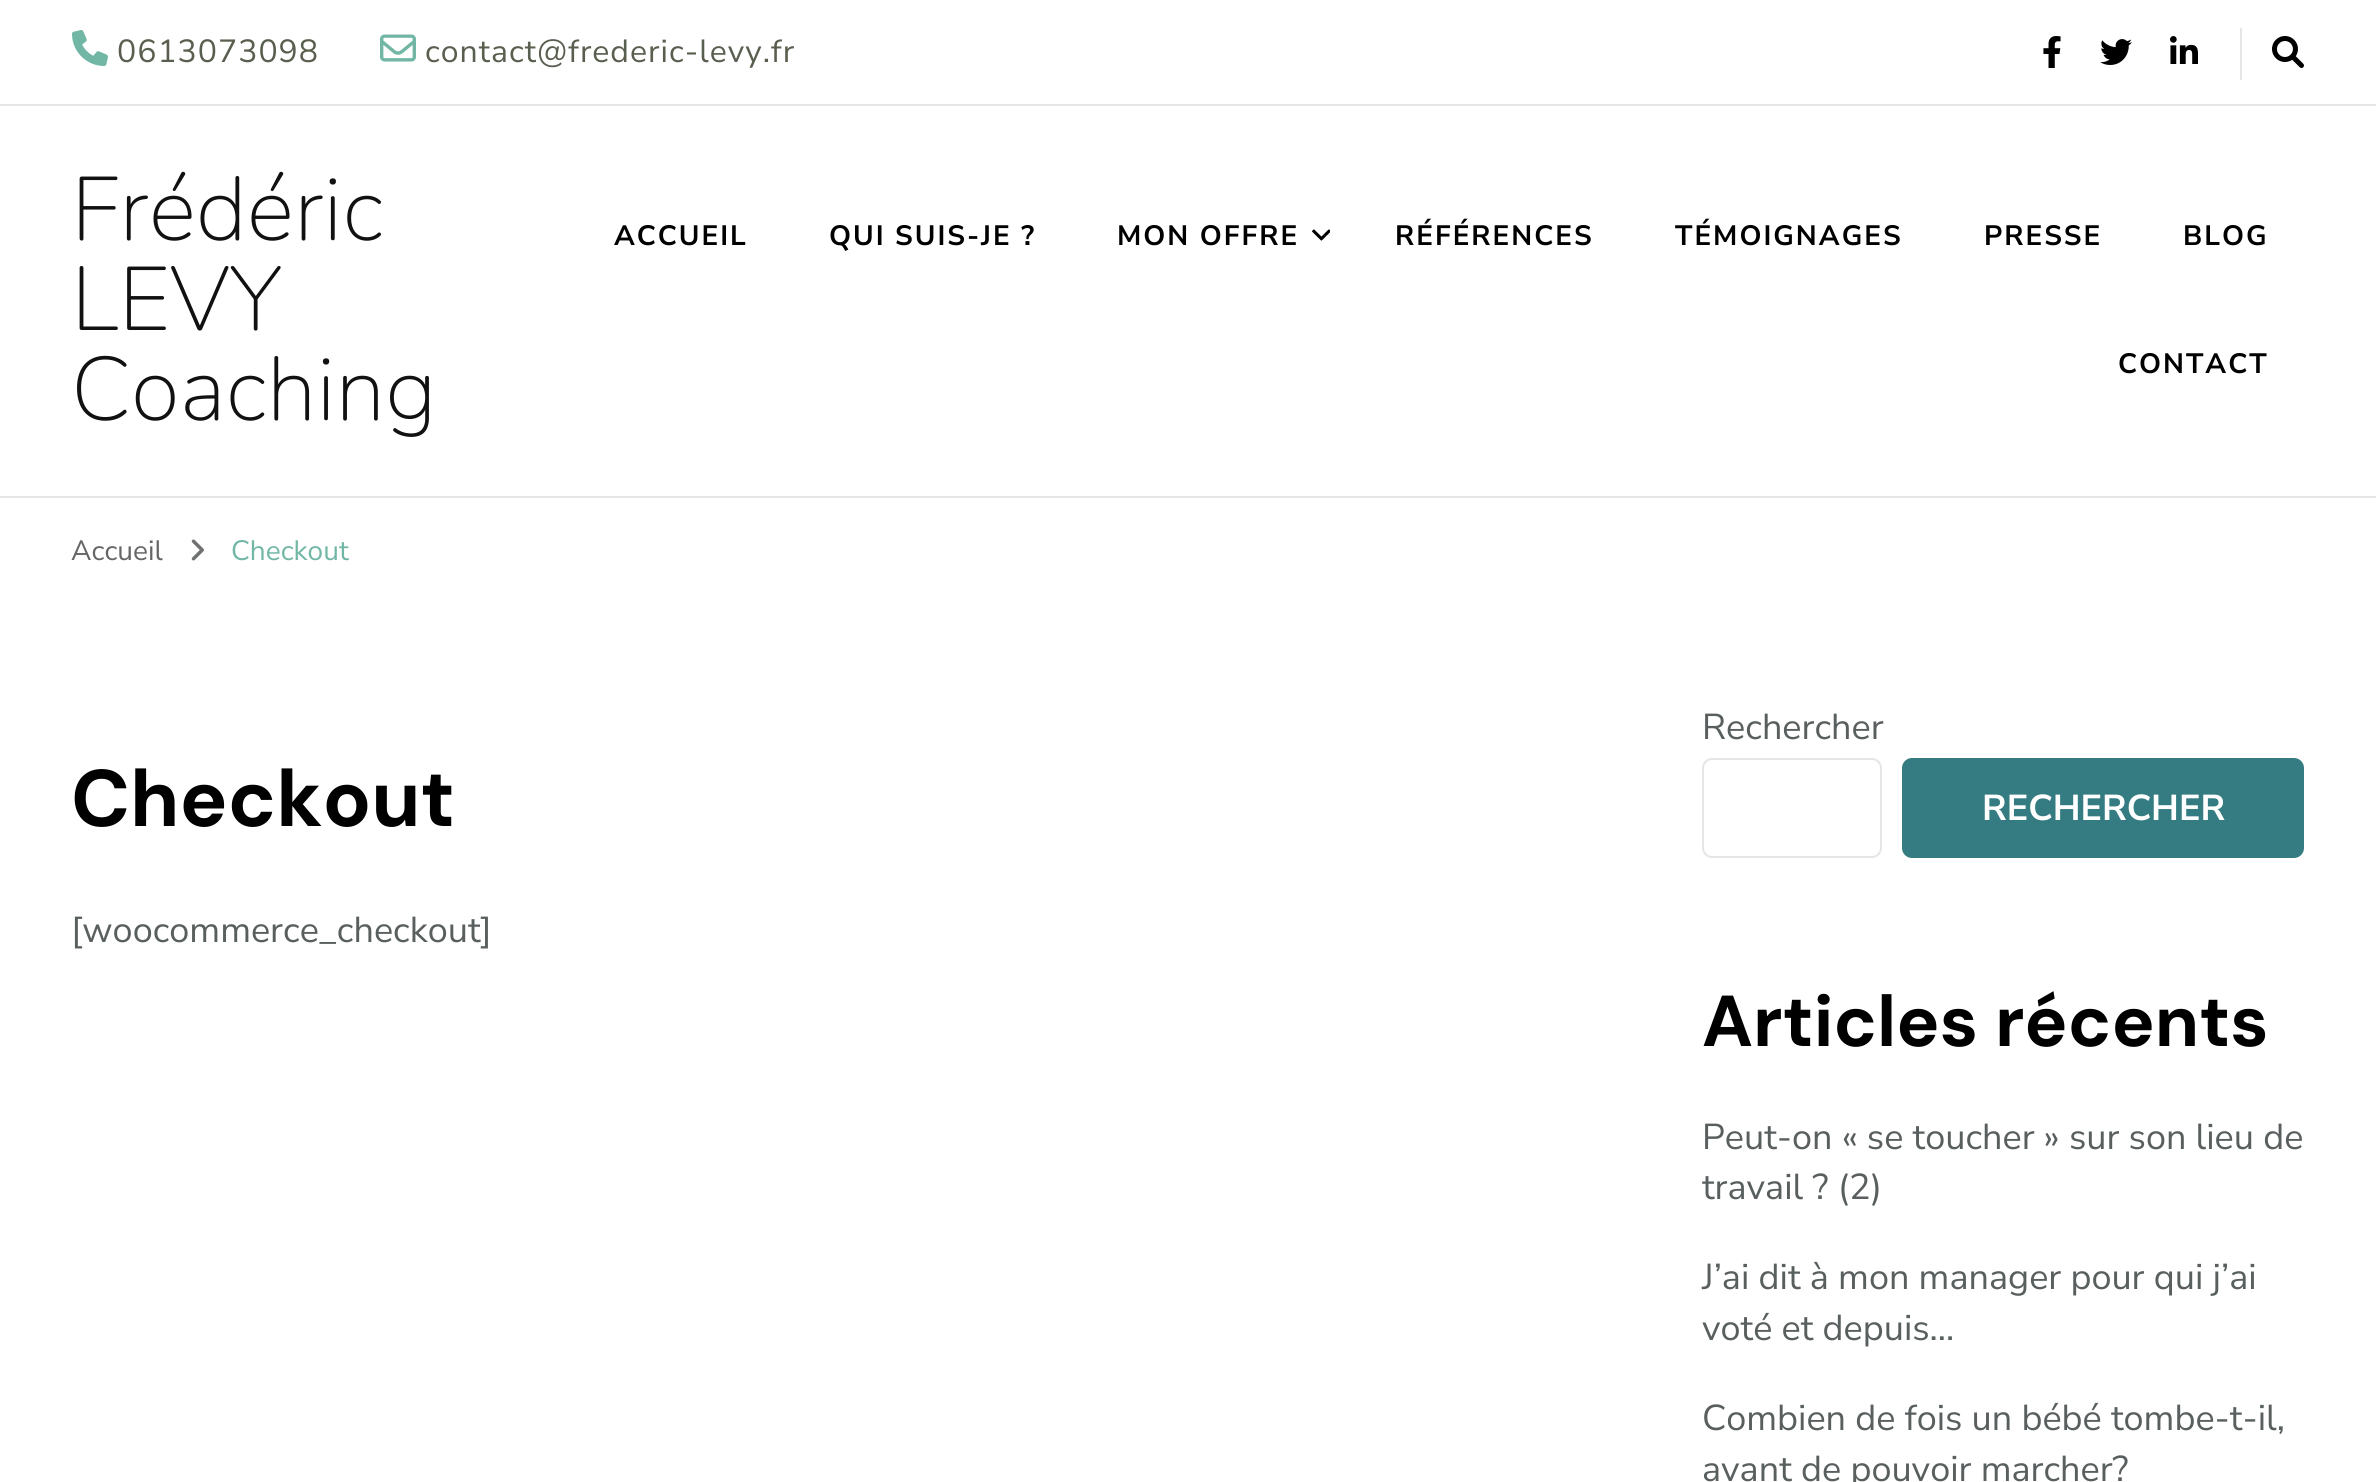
#include <cairo/cairo.h>
#include <math.h>
#include <stddef.h>

typedef struct { double x, y; const char *s; } line_t;
static cairo_t *cr;

static void rgb(unsigned color)
{
	cairo_set_source_rgb(cr, (color >> 16) / 255.0, (color >> 8 & 255) / 255.0, (color & 255) / 255.0);
}

static void tracked(double x, double y, const char *s, double letter, double word)
{
	cairo_move_to(cr, x, y);
	while (*s) {
		char ch[5] = {0};
		int n = 0;
		do ch[n++] = *s++; while ((*s & 0xC0) == 0x80);
		cairo_show_text(cr, ch);
		cairo_rel_move_to(cr, letter + word * (*ch == ' '), 0);
	}
}

static void rrect(double x, double y, double w, double h, double r)
{
	cairo_new_sub_path(cr);
	cairo_arc(cr, x + w - r, y + h - r, r, 0, M_PI / 2);
	cairo_arc(cr, x + r, y + h - r, r, M_PI / 2, M_PI);
	cairo_arc(cr, x + r, y + r, r, M_PI, 1.5 * M_PI);
	cairo_arc(cr, x + w - r, y + r, r, 1.5 * M_PI, 2 * M_PI);
	cairo_close_path(cr);
}

static void image(const char *path, double x, double y, double w, double h)
{
	cairo_surface_t *image = cairo_image_surface_create_from_png(path);
	cairo_save(cr);
	cairo_set_source_surface(cr, image, x, y);
	cairo_rectangle(cr, x, y, w, h);
	cairo_fill(cr);
	cairo_restore(cr);
	cairo_surface_destroy(image);
}

int main(void) {
	cairo_surface_t *surface = cairo_image_surface_create(CAIRO_FORMAT_RGB24, 2376, 1482);
	cr = cairo_create(surface);
	cairo_font_options_t *options = cairo_font_options_create();
	cairo_font_options_set_hint_metrics(options, CAIRO_HINT_METRICS_OFF);
	cairo_font_options_set_hint_style(options, CAIRO_HINT_STYLE_NONE);
	cairo_set_font_options(cr, options);
	cairo_set_miter_limit(cr, 4);
	rgb(0xffffff);
	cairo_paint(cr);
	rgb(0xe5e5e5);
	cairo_rectangle(cr, 0, 496, 2376, 2);
	cairo_fill(cr);
	cairo_rectangle(cr, 0, 104, 2376, 2);
	cairo_fill(cr);
	image("img/1.png", 72, 30, 36, 36);
	image("img/2.png", 380, 34, 36, 28);
	image("img/3.png", 2043, 36, 18, 32);
	image("img/4.png", 2100, 39, 32, 26);
	image("img/5.png", 2170, 36, 28, 28);
	cairo_rectangle(cr, 2240, 28, 2, 52);
	cairo_fill(cr);
	image("img/6.png", 2272, 36, 32, 32);
	image("img/7.png", 1312, 229, 18, 12);
	image("img/8.png", 191, 539, 13, 22);
	rrect(1703, 759, 178, 98, 9);
	cairo_stroke(cr);
	rgb(0x347c81);
	rrect(1902, 758, 402, 100, 10);
	cairo_fill(cr);
	cairo_select_font_face(cr, "Nunito Sans", CAIRO_FONT_SLANT_NORMAL, CAIRO_FONT_WEIGHT_NORMAL);
	cairo_set_font_size(cr, 32);
	rgb(0x595f4f);
	tracked(117, 62, "0613073098", 1, 0);
	tracked(425, 62, "contact@frederic-levy.fr", 1, 0);
	cairo_select_font_face(cr, "Nunito ExtraLight", CAIRO_FONT_SLANT_NORMAL, CAIRO_FONT_WEIGHT_NORMAL);
	cairo_set_font_size(cr, 90);
	rgb(0x111111);
	{
		static const line_t items[] = {
			{71, 240, "Frédéric"},
			{71, 330, "LEVY"},
			{71, 420, "Coaching"},
		};
		for (size_t i = 0; i < sizeof items / sizeof *items; i++) {
			cairo_move_to(cr, items[i].x, items[i].y);
			cairo_show_text(cr, items[i].s);
		}
	}
	cairo_select_font_face(cr, "Nunito Sans", CAIRO_FONT_SLANT_NORMAL, CAIRO_FONT_WEIGHT_BOLD);
	cairo_set_font_size(cr, 28);
	rgb(0x000000);
	{
		static const line_t items[] = {
			{614, 245, "ACCUEIL"},
			{829, 245, "QUI SUIS-JE ?"},
			{1117, 245, "MON OFFRE"},
			{1395, 245, "RÉFÉRENCES"},
			{1675, 245, "TÉMOIGNAGES"},
			{1984, 245, "PRESSE"},
			{2183, 245, "BLOG"},
			{2118, 373, "CONTACT"},
		};
		for (size_t i = 0; i < sizeof items / sizeof *items; i++) {
			tracked(items[i].x, items[i].y, items[i].s, 2, 0);
		}
	}
	cairo_select_font_face(cr, "Nunito Sans", CAIRO_FONT_SLANT_NORMAL, CAIRO_FONT_WEIGHT_NORMAL);
	rgb(0x666666);
	cairo_move_to(cr, 71, 560);
	cairo_show_text(cr, "Accueil");
	rgb(0x72b7a6);
	cairo_move_to(cr, 231, 560);
	cairo_show_text(cr, "Checkout");
	cairo_select_font_face(cr, "DM Sans", CAIRO_FONT_SLANT_NORMAL, CAIRO_FONT_WEIGHT_BOLD);
	cairo_set_font_size(cr, 80);
	rgb(0x000000);
	cairo_move_to(cr, 71, 826);
	cairo_show_text(cr, "Checkout");
	cairo_select_font_face(cr, "Nunito Sans", CAIRO_FONT_SLANT_NORMAL, CAIRO_FONT_WEIGHT_NORMAL);
	cairo_set_font_size(cr, 36);
	rgb(0x595f5f);
	cairo_move_to(cr, 71, 942);
	cairo_show_text(cr, "[woocommerce_checkout]");
	cairo_move_to(cr, 1702, 739);
	cairo_show_text(cr, "Rechercher");
	cairo_select_font_face(cr, "Nunito Sans", CAIRO_FONT_SLANT_NORMAL, CAIRO_FONT_WEIGHT_BOLD);
	rgb(0xffffff);
	cairo_move_to(cr, 1982, 820);
	cairo_show_text(cr, "RECHERCHER");
	cairo_select_font_face(cr, "DM Sans", CAIRO_FONT_SLANT_NORMAL, CAIRO_FONT_WEIGHT_BOLD);
	cairo_set_font_size(cr, 72);
	rgb(0x000000);
	cairo_move_to(cr, 1702, 1046);
	cairo_show_text(cr, "Articles récents");
	cairo_select_font_face(cr, "Nunito Sans", CAIRO_FONT_SLANT_NORMAL, CAIRO_FONT_WEIGHT_NORMAL);
	cairo_set_font_size(cr, 36);
	rgb(0x595f5f);
	{
		static const line_t items[] = {
			{1702, 1149, "Peut-on « se toucher » sur son lieu de"},
			{1702, 1199, "travail ? (2)"},
			{1702, 1289, "J’ai dit à mon manager pour qui j’ai"},
			{1702, 1340, "voté et depuis…"},
			{1702, 1430, "Combien de fois un bébé tombe-t-il,"},
			{1702, 1481, "avant de pouvoir marcher?"},
		};
		for (size_t i = 0; i < sizeof items / sizeof *items; i++) {
			cairo_move_to(cr, items[i].x, items[i].y);
			cairo_show_text(cr, items[i].s);
		}
	}
	cairo_surface_write_to_png(surface, "page.png");
	cairo_font_options_destroy(options);
	cairo_destroy(cr);
	cairo_surface_destroy(surface);
	return 0;
}
